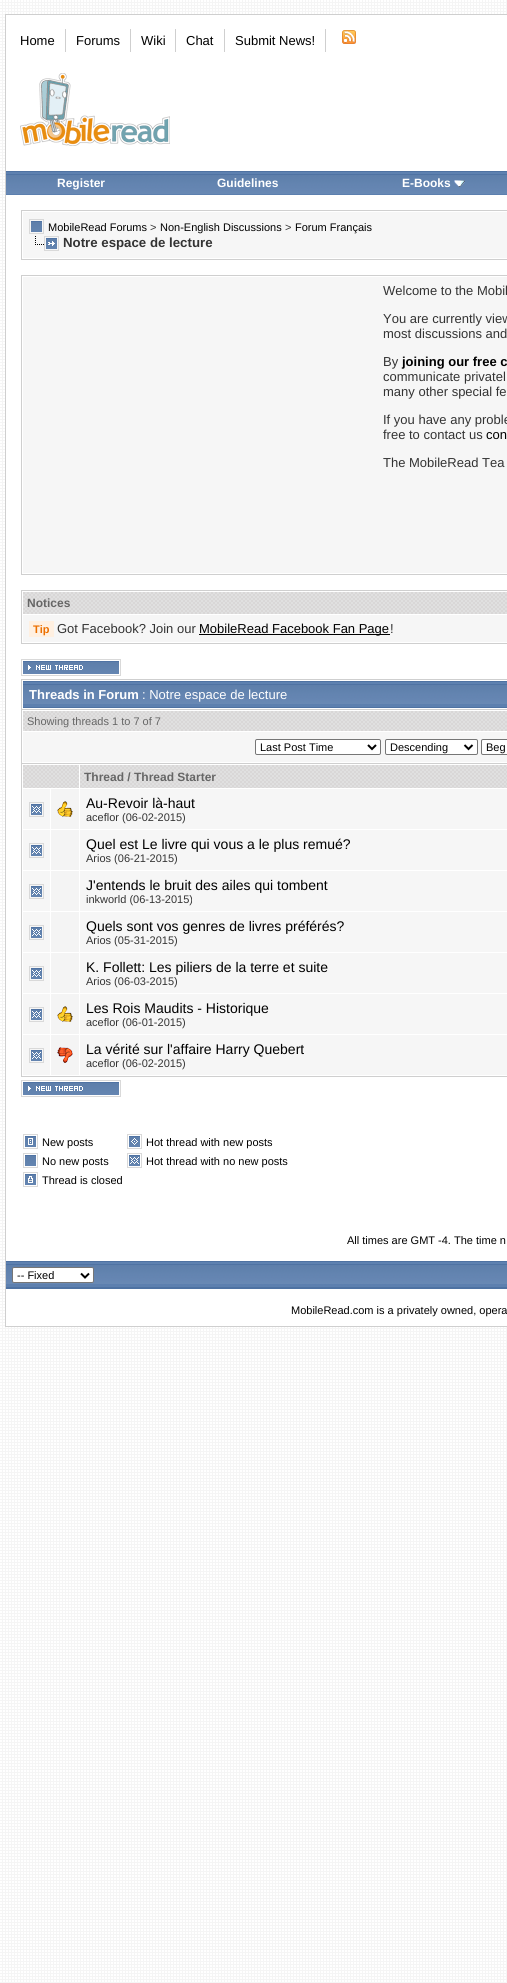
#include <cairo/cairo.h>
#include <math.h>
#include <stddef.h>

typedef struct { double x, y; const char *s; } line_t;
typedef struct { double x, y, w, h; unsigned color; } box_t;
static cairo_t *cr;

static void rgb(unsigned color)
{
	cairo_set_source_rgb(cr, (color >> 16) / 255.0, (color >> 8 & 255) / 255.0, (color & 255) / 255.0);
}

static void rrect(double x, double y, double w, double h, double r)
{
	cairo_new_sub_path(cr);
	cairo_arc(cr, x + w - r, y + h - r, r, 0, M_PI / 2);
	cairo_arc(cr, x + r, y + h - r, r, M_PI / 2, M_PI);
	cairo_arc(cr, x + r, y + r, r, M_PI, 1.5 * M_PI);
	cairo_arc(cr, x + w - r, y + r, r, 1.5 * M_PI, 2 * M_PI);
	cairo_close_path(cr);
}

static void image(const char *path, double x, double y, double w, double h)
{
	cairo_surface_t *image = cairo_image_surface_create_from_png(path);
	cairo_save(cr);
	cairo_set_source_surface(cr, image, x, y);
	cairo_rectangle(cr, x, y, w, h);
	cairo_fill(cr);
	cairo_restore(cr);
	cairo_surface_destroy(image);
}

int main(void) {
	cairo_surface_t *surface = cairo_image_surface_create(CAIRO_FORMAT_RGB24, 507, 1983);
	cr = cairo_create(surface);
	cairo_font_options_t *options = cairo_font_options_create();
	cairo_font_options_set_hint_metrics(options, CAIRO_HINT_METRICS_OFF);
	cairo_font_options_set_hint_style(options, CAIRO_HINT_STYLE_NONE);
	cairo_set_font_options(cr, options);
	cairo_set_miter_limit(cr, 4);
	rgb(0xffffff);
	cairo_paint(cr);
	image("img/1.png", 0, 0, 507, 1983);
	rgb(0xffffff);
	cairo_rectangle(cr, 5.5, 14.5, 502, 1312);
	cairo_fill_preserve(cr);
	rgb(0xcfcfcf);
	cairo_set_line_width(cr, 1);
	cairo_stroke(cr);
	{
		static const box_t items[] = {
			{65, 29, 1, 23, 0xcfcfcf},
			{130, 29, 1, 23, 0xcfcfcf},
			{175, 29, 1, 23, 0xcfcfcf},
			{224, 29, 1, 23, 0xcfcfcf},
			{325, 29, 1, 23, 0xcfcfcf},
		};
		for (size_t i = 0; i < sizeof items / sizeof *items; i++) {
			rgb(items[i].color);
			cairo_rectangle(cr, items[i].x, items[i].y, items[i].w, items[i].h);
			cairo_fill(cr);
		}
	}
	image("img/2.png", 342, 30, 14, 14);
	image("img/3.png", 20, 73, 150, 73);
	rgb(0x4e72a2);
	cairo_rectangle(cr, 6, 171, 501, 1);
	cairo_fill(cr);
	image("img/4.png", 6, 172, 150, 23);
	image("img/5.png", 156, 172, 184, 23);
	image("img/6.png", 340, 172, 167, 23);
	image("img/7.png", 454, 180, 11, 7);
	cairo_rectangle(cr, 21.5, 210.5, 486, 49);
	rgb(0xcfcfcf);
	cairo_stroke(cr);
	rgb(0xf6f6f6);
	cairo_rectangle(cr, 23, 212, 484, 46);
	cairo_fill(cr);
	image("img/8.png", 29, 219, 15, 15);
	image("img/9.png", 35, 236, 24, 15);
	cairo_rectangle(cr, 21.5, 275.5, 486, 299);
	rgb(0xcfcfcf);
	cairo_stroke(cr);
	rgb(0xf6f6f6);
	cairo_rectangle(cr, 23, 277, 484, 296);
	cairo_fill(cr);
	cairo_rectangle(cr, 21.5, 590.5, 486, 53);
	rgb(0xcfcfcf);
	cairo_stroke(cr);
	image("img/10.png", 23, 592, 484, 22);
	{
		static const box_t items[] = {
			{23, 615, 484, 27, 0xf6f6f6},
			{29, 621, 25, 16, 0xfff0e1},
			{199, 634, 191, 1, 0x000000},
		};
		for (size_t i = 0; i < sizeof items / sizeof *items; i++) {
			rgb(items[i].color);
			cairo_rectangle(cr, items[i].x, items[i].y, items[i].w, items[i].h);
			cairo_fill(cr);
		}
	}
	image("img/11.png", 21, 659, 100, 17);
	{
		static const box_t items[] = {
			{21, 679, 486, 1, 0xcfcfcf},
			{21, 679, 1, 30, 0xcfcfcf},
			{23, 681, 484, 27, 0x4e72a2},
		};
		for (size_t i = 0; i < sizeof items / sizeof *items; i++) {
			rgb(items[i].color);
			cairo_rectangle(cr, items[i].x, items[i].y, items[i].w, items[i].h);
			cairo_fill(cr);
		}
	}
	image("img/12.png", 23, 682, 484, 25);
	rgb(0xcfcfcf);
	cairo_rectangle(cr, 21, 709, 486, 1);
	cairo_fill(cr);
	cairo_rectangle(cr, 21, 709, 1, 54);
	cairo_fill(cr);
	image("img/13.png", 23, 711, 484, 20);
	rgb(0xf6f6f6);
	cairo_rectangle(cr, 23, 732, 484, 30);
	cairo_fill(cr);
	rgb(0xffffff);
	rrect(255.5, 739.5, 125, 15, 1.5);
	cairo_fill_preserve(cr);
	rgb(0x767676);
	cairo_stroke(cr);
	cairo_new_path(cr);
	cairo_move_to(cr, 368, 745);
	cairo_line_to(cr, 372, 749);
	cairo_line_to(cr, 376, 745);
	rgb(0x000000);
	cairo_set_line_width(cr, 2);
	cairo_stroke(cr);
	rgb(0xffffff);
	rrect(385.5, 739.5, 92, 15, 1.5);
	cairo_fill_preserve(cr);
	rgb(0x767676);
	cairo_set_line_width(cr, 1);
	cairo_stroke(cr);
	cairo_new_path(cr);
	cairo_move_to(cr, 464.5, 745);
	cairo_line_to(cr, 468.5, 749);
	cairo_line_to(cr, 472.5, 745);
	rgb(0x000000);
	cairo_set_line_width(cr, 2);
	cairo_stroke(cr);
	rgb(0xffffff);
	rrect(481.5, 739.5, 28, 15, 1.5);
	cairo_fill_preserve(cr);
	rgb(0x767676);
	cairo_set_line_width(cr, 1);
	cairo_stroke(cr);
	cairo_rectangle(cr, 21.5, 763.5, 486, 313);
	rgb(0xcfcfcf);
	cairo_stroke(cr);
	image("img/14.png", 23, 765, 56, 23);
	image("img/15.png", 80, 765, 427, 23);
	rgb(0xf6f6f6);
	cairo_rectangle(cr, 23, 789, 27, 40);
	cairo_fill(cr);
	image("img/16.png", 29, 802, 15, 15);
	rgb(0xf4f4f4);
	cairo_rectangle(cr, 51, 789, 28, 40);
	cairo_fill(cr);
	image("img/17.png", 57, 801, 16, 16);
	rgb(0xf6f6f6);
	cairo_rectangle(cr, 80, 789, 427, 40);
	cairo_fill(cr);
	cairo_rectangle(cr, 23, 830, 27, 40);
	cairo_fill(cr);
	image("img/16.png", 29, 843, 15, 15);
	{
		static const box_t items[] = {
			{51, 830, 28, 40, 0xf4f4f4},
			{80, 830, 427, 40, 0xf6f6f6},
			{23, 871, 27, 40, 0xf6f6f6},
		};
		for (size_t i = 0; i < sizeof items / sizeof *items; i++) {
			rgb(items[i].color);
			cairo_rectangle(cr, items[i].x, items[i].y, items[i].w, items[i].h);
			cairo_fill(cr);
		}
	}
	image("img/16.png", 29, 884, 15, 15);
	{
		static const box_t items[] = {
			{51, 871, 28, 40, 0xf4f4f4},
			{80, 871, 427, 40, 0xf6f6f6},
			{23, 912, 27, 40, 0xf6f6f6},
		};
		for (size_t i = 0; i < sizeof items / sizeof *items; i++) {
			rgb(items[i].color);
			cairo_rectangle(cr, items[i].x, items[i].y, items[i].w, items[i].h);
			cairo_fill(cr);
		}
	}
	image("img/16.png", 29, 925, 15, 15);
	{
		static const box_t items[] = {
			{51, 912, 28, 40, 0xf4f4f4},
			{80, 912, 427, 40, 0xf6f6f6},
			{23, 953, 27, 40, 0xf6f6f6},
		};
		for (size_t i = 0; i < sizeof items / sizeof *items; i++) {
			rgb(items[i].color);
			cairo_rectangle(cr, items[i].x, items[i].y, items[i].w, items[i].h);
			cairo_fill(cr);
		}
	}
	image("img/16.png", 29, 966, 15, 15);
	{
		static const box_t items[] = {
			{51, 953, 28, 40, 0xf4f4f4},
			{80, 953, 427, 40, 0xf6f6f6},
			{23, 994, 27, 40, 0xf6f6f6},
		};
		for (size_t i = 0; i < sizeof items / sizeof *items; i++) {
			rgb(items[i].color);
			cairo_rectangle(cr, items[i].x, items[i].y, items[i].w, items[i].h);
			cairo_fill(cr);
		}
	}
	image("img/16.png", 29, 1007, 15, 15);
	rgb(0xf4f4f4);
	cairo_rectangle(cr, 51, 994, 28, 40);
	cairo_fill(cr);
	image("img/17.png", 57, 1006, 16, 16);
	rgb(0xf6f6f6);
	cairo_rectangle(cr, 80, 994, 427, 40);
	cairo_fill(cr);
	cairo_rectangle(cr, 23, 1035, 27, 40);
	cairo_fill(cr);
	image("img/16.png", 29, 1048, 15, 15);
	rgb(0xf4f4f4);
	cairo_rectangle(cr, 51, 1035, 28, 40);
	cairo_fill(cr);
	image("img/18.png", 57, 1047, 16, 16);
	rgb(0xf6f6f6);
	cairo_rectangle(cr, 80, 1035, 427, 40);
	cairo_fill(cr);
	image("img/11.png", 21, 1080, 100, 17);
	image("img/19.png", 23, 1134, 15, 15);
	image("img/20.png", 127, 1134, 15, 15);
	image("img/21.png", 23, 1153, 15, 15);
	image("img/22.png", 127, 1153, 15, 15);
	image("img/23.png", 23, 1172, 15, 15);
	rgb(0x4e72a2);
	cairo_rectangle(cr, 6, 1261, 501, 28);
	cairo_fill(cr);
	image("img/24.png", 6, 1262, 94, 25);
	rgb(0xffffff);
	rrect(12.5, 1267.5, 81, 15, 1.5);
	cairo_fill_preserve(cr);
	rgb(0x767676);
	cairo_stroke(cr);
	cairo_new_path(cr);
	cairo_move_to(cr, 81, 1273.5);
	cairo_line_to(cr, 85, 1277.5);
	cairo_line_to(cr, 89, 1273.5);
	rgb(0x000000);
	cairo_set_line_width(cr, 2);
	cairo_stroke(cr);
	image("img/25.png", 100, 1262, 407, 25);
	cairo_select_font_face(cr, "Liberation Sans", CAIRO_FONT_SLANT_NORMAL, CAIRO_FONT_WEIGHT_NORMAL);
	cairo_set_font_size(cr, 13);
	{
		static const line_t items[] = {
			{20, 45, "Home"},
			{76, 45, "Forums"},
			{141, 45, "Wiki"},
			{186, 45, "Chat"},
			{235, 45, "Submit News!"},
		};
		for (size_t i = 0; i < sizeof items / sizeof *items; i++) {
			cairo_move_to(cr, items[i].x, items[i].y);
			cairo_show_text(cr, items[i].s);
		}
	}
	cairo_select_font_face(cr, "Liberation Sans", CAIRO_FONT_SLANT_NORMAL, CAIRO_FONT_WEIGHT_BOLD);
	cairo_set_font_size(cr, 12);
	rgb(0xffffff);
	{
		static const line_t items[] = {
			{57, 187, "Register"},
			{217, 187, "Guidelines"},
			{402, 187, "E-Books"},
		};
		for (size_t i = 0; i < sizeof items / sizeof *items; i++) {
			cairo_move_to(cr, items[i].x, items[i].y);
			cairo_show_text(cr, items[i].s);
		}
	}
	cairo_select_font_face(cr, "Liberation Sans", CAIRO_FONT_SLANT_NORMAL, CAIRO_FONT_WEIGHT_NORMAL);
	cairo_set_font_size(cr, 11);
	rgb(0x000000);
	cairo_move_to(cr, 48, 231);
	cairo_show_text(cr, "MobileRead Forums");
	rgb(0x333333);
	cairo_move_to(cr, 150, 231);
	cairo_show_text(cr, ">");
	rgb(0x000000);
	cairo_move_to(cr, 160, 231);
	cairo_show_text(cr, "Non-English Discussions");
	rgb(0x333333);
	cairo_move_to(cr, 285, 231);
	cairo_show_text(cr, ">");
	rgb(0x000000);
	cairo_move_to(cr, 295, 231);
	cairo_show_text(cr, "Forum Français");
	cairo_select_font_face(cr, "Liberation Sans", CAIRO_FONT_SLANT_NORMAL, CAIRO_FONT_WEIGHT_BOLD);
	cairo_set_font_size(cr, 13.25);
	rgb(0x333333);
	cairo_move_to(cr, 63, 247);
	cairo_show_text(cr, "Notre espace de lecture");
	cairo_select_font_face(cr, "Liberation Sans", CAIRO_FONT_SLANT_NORMAL, CAIRO_FONT_WEIGHT_NORMAL);
	cairo_set_font_size(cr, 13);
	{
		static const line_t items[] = {
			{383, 295, "Welcome to the Mobil"},
			{383, 323, "You are currently view"},
			{383, 338, "most discussions and"},
			{383, 366, "By"},
		};
		for (size_t i = 0; i < sizeof items / sizeof *items; i++) {
			cairo_move_to(cr, items[i].x, items[i].y);
			cairo_show_text(cr, items[i].s);
		}
	}
	cairo_select_font_face(cr, "Liberation Sans", CAIRO_FONT_SLANT_NORMAL, CAIRO_FONT_WEIGHT_BOLD);
	rgb(0x000000);
	cairo_move_to(cr, 402, 366);
	cairo_show_text(cr, "joining our free c");
	cairo_select_font_face(cr, "Liberation Sans", CAIRO_FONT_SLANT_NORMAL, CAIRO_FONT_WEIGHT_NORMAL);
	rgb(0x333333);
	{
		static const line_t items[] = {
			{383, 381, "communicate privatel"},
			{383, 396, "many other special fe"},
			{383, 424, "If you have any proble"},
			{383, 439, "free to contact us"},
		};
		for (size_t i = 0; i < sizeof items / sizeof *items; i++) {
			cairo_move_to(cr, items[i].x, items[i].y);
			cairo_show_text(cr, items[i].s);
		}
	}
	rgb(0x000000);
	cairo_move_to(cr, 486, 439);
	cairo_show_text(cr, "con");
	rgb(0x333333);
	cairo_move_to(cr, 383, 467);
	cairo_show_text(cr, "The MobileRead Tea");
	cairo_select_font_face(cr, "Liberation Sans", CAIRO_FONT_SLANT_NORMAL, CAIRO_FONT_WEIGHT_BOLD);
	cairo_set_font_size(cr, 12);
	rgb(0x666666);
	cairo_move_to(cr, 27, 607);
	cairo_show_text(cr, "Notices");
	cairo_set_font_size(cr, 11);
	rgb(0xec7000);
	cairo_move_to(cr, 33, 633);
	cairo_show_text(cr, "Tip");
	cairo_select_font_face(cr, "Liberation Sans", CAIRO_FONT_SLANT_NORMAL, CAIRO_FONT_WEIGHT_NORMAL);
	cairo_set_font_size(cr, 13);
	rgb(0x333333);
	cairo_move_to(cr, 57, 633);
	cairo_show_text(cr, "Got Facebook? Join our");
	rgb(0x000000);
	cairo_move_to(cr, 199, 633);
	cairo_show_text(cr, "MobileRead Facebook Fan Page");
	rgb(0x333333);
	cairo_move_to(cr, 390, 633);
	cairo_show_text(cr, "!");
	cairo_select_font_face(cr, "Liberation Sans", CAIRO_FONT_SLANT_NORMAL, CAIRO_FONT_WEIGHT_BOLD);
	rgb(0xffffff);
	cairo_move_to(cr, 29, 699);
	cairo_show_text(cr, "Threads in Forum");
	cairo_select_font_face(cr, "Liberation Sans", CAIRO_FONT_SLANT_NORMAL, CAIRO_FONT_WEIGHT_NORMAL);
	cairo_move_to(cr, 142, 699);
	cairo_show_text(cr, ": Notre espace de lecture");
	cairo_set_font_size(cr, 11);
	rgb(0x666666);
	cairo_move_to(cr, 27, 725);
	cairo_show_text(cr, "Showing threads 1 to 7 of 7");
	rgb(0x000000);
	{
		static const line_t items[] = {
			{260, 751, "Last Post Time"},
			{390, 751, "Descending"},
			{486, 751, "Beg"},
		};
		for (size_t i = 0; i < sizeof items / sizeof *items; i++) {
			cairo_move_to(cr, items[i].x, items[i].y);
			cairo_show_text(cr, items[i].s);
		}
	}
	cairo_select_font_face(cr, "Liberation Sans", CAIRO_FONT_SLANT_NORMAL, CAIRO_FONT_WEIGHT_BOLD);
	cairo_set_font_size(cr, 12);
	rgb(0x666666);
	cairo_move_to(cr, 84, 781);
	cairo_show_text(cr, "Thread / Thread Starter");
	cairo_select_font_face(cr, "Liberation Sans", CAIRO_FONT_SLANT_NORMAL, CAIRO_FONT_WEIGHT_NORMAL);
	cairo_set_font_size(cr, 14);
	rgb(0x000000);
	cairo_move_to(cr, 86, 808);
	cairo_show_text(cr, "Au-Revoir là-haut");
	cairo_set_font_size(cr, 11);
	rgb(0x333333);
	cairo_move_to(cr, 86, 821);
	cairo_show_text(cr, "aceflor (06-02-2015)");
	cairo_set_font_size(cr, 14);
	rgb(0x000000);
	cairo_move_to(cr, 86, 849);
	cairo_show_text(cr, "Quel est Le livre qui vous a le plus remué?");
	cairo_set_font_size(cr, 11);
	rgb(0x333333);
	cairo_move_to(cr, 86, 862);
	cairo_show_text(cr, "Arios (06-21-2015)");
	cairo_set_font_size(cr, 14);
	rgb(0x000000);
	cairo_move_to(cr, 86, 890);
	cairo_show_text(cr, "J'entends le bruit des ailes qui tombent");
	cairo_set_font_size(cr, 11);
	rgb(0x333333);
	cairo_move_to(cr, 86, 903);
	cairo_show_text(cr, "inkworld (06-13-2015)");
	cairo_set_font_size(cr, 14);
	rgb(0x000000);
	cairo_move_to(cr, 86, 931);
	cairo_show_text(cr, "Quels sont vos genres de livres préférés?");
	cairo_set_font_size(cr, 11);
	rgb(0x333333);
	cairo_move_to(cr, 86, 944);
	cairo_show_text(cr, "Arios (05-31-2015)");
	cairo_set_font_size(cr, 14);
	rgb(0x000000);
	cairo_move_to(cr, 86, 972);
	cairo_show_text(cr, "K. Follett: Les piliers de la terre et suite");
	cairo_set_font_size(cr, 11);
	rgb(0x333333);
	cairo_move_to(cr, 86, 985);
	cairo_show_text(cr, "Arios (06-03-2015)");
	cairo_set_font_size(cr, 14);
	rgb(0x000000);
	cairo_move_to(cr, 86, 1013);
	cairo_show_text(cr, "Les Rois Maudits - Historique");
	cairo_set_font_size(cr, 11);
	rgb(0x333333);
	cairo_move_to(cr, 86, 1026);
	cairo_show_text(cr, "aceflor (06-01-2015)");
	cairo_set_font_size(cr, 14);
	rgb(0x000000);
	cairo_move_to(cr, 86, 1054);
	cairo_show_text(cr, "La vérité sur l'affaire Harry Quebert");
	cairo_set_font_size(cr, 11);
	rgb(0x333333);
	cairo_move_to(cr, 86, 1067);
	cairo_show_text(cr, "aceflor (06-02-2015)");
	rgb(0x000000);
	{
		static const line_t items[] = {
			{42, 1146, "New posts"},
			{146, 1146, "Hot thread with new posts"},
			{42, 1165, "No new posts"},
			{146, 1165, "Hot thread with no new posts"},
			{42, 1184, "Thread is closed"},
			{347, 1244, "All times are GMT -4. The time n"},
			{17, 1279, "-- Fixed"},
			{291, 1314, "MobileRead.com is a privately owned, opera"},
		};
		for (size_t i = 0; i < sizeof items / sizeof *items; i++) {
			cairo_move_to(cr, items[i].x, items[i].y);
			cairo_show_text(cr, items[i].s);
		}
	}
	cairo_surface_write_to_png(surface, "page.png");
	cairo_font_options_destroy(options);
	cairo_destroy(cr);
	cairo_surface_destroy(surface);
	return 0;
}
